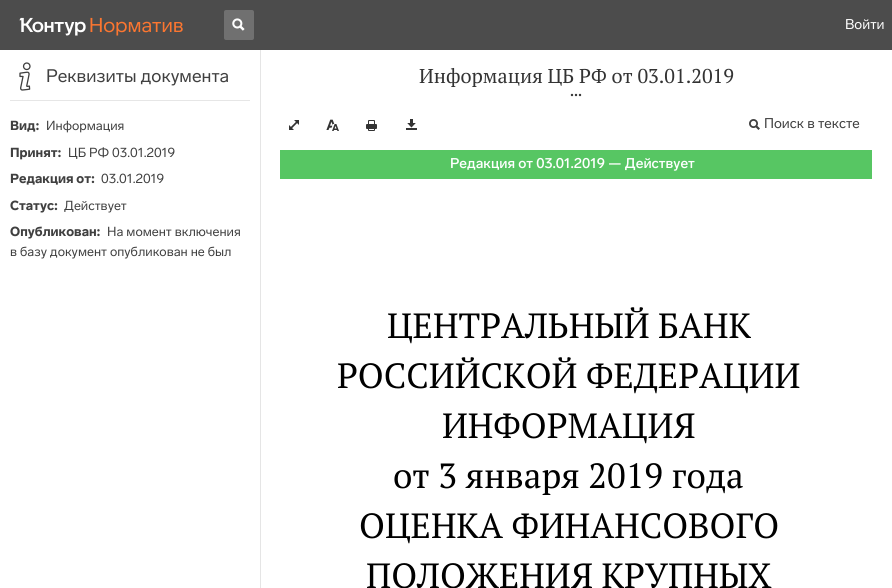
#include <cairo/cairo.h>
#include <math.h>
#include <stddef.h>

typedef struct { double x, y; const char *s; } line_t;
static cairo_t *cr;

static void rgb(unsigned color)
{
	cairo_set_source_rgb(cr, (color >> 16) / 255.0, (color >> 8 & 255) / 255.0, (color & 255) / 255.0);
}

static void rrect(double x, double y, double w, double h, double r)
{
	cairo_new_sub_path(cr);
	cairo_arc(cr, x + w - r, y + h - r, r, 0, M_PI / 2);
	cairo_arc(cr, x + r, y + h - r, r, M_PI / 2, M_PI);
	cairo_arc(cr, x + r, y + r, r, M_PI, 1.5 * M_PI);
	cairo_arc(cr, x + w - r, y + r, r, 1.5 * M_PI, 2 * M_PI);
	cairo_close_path(cr);
}

static void image(const char *path, double x, double y, double w, double h)
{
	cairo_surface_t *image = cairo_image_surface_create_from_png(path);
	cairo_save(cr);
	cairo_set_source_surface(cr, image, x, y);
	cairo_rectangle(cr, x, y, w, h);
	cairo_fill(cr);
	cairo_restore(cr);
	cairo_surface_destroy(image);
}

int main(void) {
	cairo_surface_t *surface = cairo_image_surface_create(CAIRO_FORMAT_RGB24, 892, 588);
	cr = cairo_create(surface);
	cairo_font_options_t *options = cairo_font_options_create();
	cairo_font_options_set_hint_metrics(options, CAIRO_HINT_METRICS_OFF);
	cairo_font_options_set_hint_style(options, CAIRO_HINT_STYLE_NONE);
	cairo_set_font_options(cr, options);
	cairo_set_miter_limit(cr, 4);
	rgb(0xffffff);
	cairo_paint(cr);
	rgb(0x4c4c4c);
	cairo_rectangle(cr, 0, 0, 892, 50);
	cairo_fill(cr);
	image("img/1.png", 19, 17, 67, 19);
	image("img/2.png", 90, 17, 93, 19);
	rgb(0x707070);
	rrect(224, 10, 30, 30, 2);
	cairo_fill(cr);
	image("img/3.png", 232, 18, 13, 13);
	rgb(0xe5e5e5);
	cairo_rectangle(cr, 260, 50, 1, 538);
	cairo_fill(cr);
	image("img/4.png", 19, 62, 12, 29);
	rgb(0xe6e6e6);
	cairo_rectangle(cr, 10, 100, 240, 1);
	cairo_fill(cr);
	image("img/5.png", 570, 93, 12, 4);
	image("img/6.png", 289, 120, 10, 10);
	image("img/7.png", 326, 119, 13, 12);
	image("img/8.png", 366, 120, 11, 11);
	image("img/9.png", 406, 119, 11, 11);
	image("img/10.png", 749, 119, 11, 11);
	rgb(0x57c663);
	cairo_rectangle(cr, 280, 150, 592, 29);
	cairo_fill(cr);
	cairo_select_font_face(cr, "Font", CAIRO_FONT_SLANT_NORMAL, CAIRO_FONT_WEIGHT_NORMAL);
	cairo_set_font_size(cr, 14);
	rgb(0xffffff);
	cairo_move_to(cr, 845, 29);
	cairo_show_text(cr, "Войти");
	cairo_set_font_size(cr, 18);
	rgb(0x404040);
	cairo_move_to(cr, 46, 82);
	cairo_show_text(cr, "Реквизиты документа");
	cairo_select_font_face(cr, "Font Black", CAIRO_FONT_SLANT_NORMAL, CAIRO_FONT_WEIGHT_NORMAL);
	cairo_set_font_size(cr, 13);
	cairo_move_to(cr, 10, 130);
	cairo_show_text(cr, "Вид:");
	cairo_select_font_face(cr, "Font", CAIRO_FONT_SLANT_NORMAL, CAIRO_FONT_WEIGHT_NORMAL);
	cairo_move_to(cr, 46, 130);
	cairo_show_text(cr, "Информация");
	cairo_select_font_face(cr, "Font Black", CAIRO_FONT_SLANT_NORMAL, CAIRO_FONT_WEIGHT_NORMAL);
	cairo_move_to(cr, 10, 157);
	cairo_show_text(cr, "Принят:");
	cairo_select_font_face(cr, "Font", CAIRO_FONT_SLANT_NORMAL, CAIRO_FONT_WEIGHT_NORMAL);
	cairo_move_to(cr, 68, 157);
	cairo_show_text(cr, "ЦБ РФ 03.01.2019");
	cairo_select_font_face(cr, "Font Black", CAIRO_FONT_SLANT_NORMAL, CAIRO_FONT_WEIGHT_NORMAL);
	cairo_move_to(cr, 10, 183);
	cairo_show_text(cr, "Редакция от:");
	cairo_select_font_face(cr, "Font", CAIRO_FONT_SLANT_NORMAL, CAIRO_FONT_WEIGHT_NORMAL);
	cairo_move_to(cr, 101, 183);
	cairo_show_text(cr, "03.01.2019");
	cairo_select_font_face(cr, "Font Black", CAIRO_FONT_SLANT_NORMAL, CAIRO_FONT_WEIGHT_NORMAL);
	cairo_move_to(cr, 10, 210);
	cairo_show_text(cr, "Статус:");
	cairo_select_font_face(cr, "Font", CAIRO_FONT_SLANT_NORMAL, CAIRO_FONT_WEIGHT_NORMAL);
	cairo_move_to(cr, 64, 210);
	cairo_show_text(cr, "Действует");
	cairo_select_font_face(cr, "Font Black", CAIRO_FONT_SLANT_NORMAL, CAIRO_FONT_WEIGHT_NORMAL);
	cairo_move_to(cr, 10, 236);
	cairo_show_text(cr, "Опубликован:");
	cairo_select_font_face(cr, "Font", CAIRO_FONT_SLANT_NORMAL, CAIRO_FONT_WEIGHT_NORMAL);
	cairo_move_to(cr, 107, 236);
	cairo_show_text(cr, "На момент включения");
	cairo_move_to(cr, 10, 256);
	cairo_show_text(cr, "в базу документ опубликован не был");
	cairo_select_font_face(cr, "PT Serif", CAIRO_FONT_SLANT_NORMAL, CAIRO_FONT_WEIGHT_NORMAL);
	cairo_set_font_size(cr, 20);
	rgb(0x333333);
	cairo_move_to(cr, 419, 83);
	cairo_show_text(cr, "Информация ЦБ РФ от 03.01.2019");
	cairo_select_font_face(cr, "Font", CAIRO_FONT_SLANT_NORMAL, CAIRO_FONT_WEIGHT_NORMAL);
	cairo_set_font_size(cr, 14);
	rgb(0x404040);
	cairo_move_to(cr, 764, 128);
	cairo_show_text(cr, "Поиск в тексте");
	cairo_select_font_face(cr, "Font Medium", CAIRO_FONT_SLANT_NORMAL, CAIRO_FONT_WEIGHT_NORMAL);
	rgb(0xffffff);
	cairo_move_to(cr, 450, 168);
	cairo_show_text(cr, "Редакция от 03.01.2019 — Действует");
	cairo_select_font_face(cr, "PT Serif", CAIRO_FONT_SLANT_NORMAL, CAIRO_FONT_WEIGHT_NORMAL);
	cairo_set_font_size(cr, 35);
	rgb(0x000000);
	{
		static const line_t items[] = {
			{387, 338, "ЦЕНТРАЛЬНЫЙ БАНК"},
			{337, 388, "РОССИЙСКОЙ ФЕДЕРАЦИИ"},
			{442, 438, "ИНФОРМАЦИЯ"},
			{393, 488, "от 3 января 2019 года"},
			{359, 538, "ОЦЕНКА ФИНАНСОВОГО"},
			{366, 588, "ПОЛОЖЕНИЯ КРУПНЫХ"},
		};
		for (size_t i = 0; i < sizeof items / sizeof *items; i++) {
			cairo_move_to(cr, items[i].x, items[i].y);
			cairo_show_text(cr, items[i].s);
		}
	}
	cairo_surface_write_to_png(surface, "page.png");
	cairo_font_options_destroy(options);
	cairo_destroy(cr);
	cairo_surface_destroy(surface);
	return 0;
}
